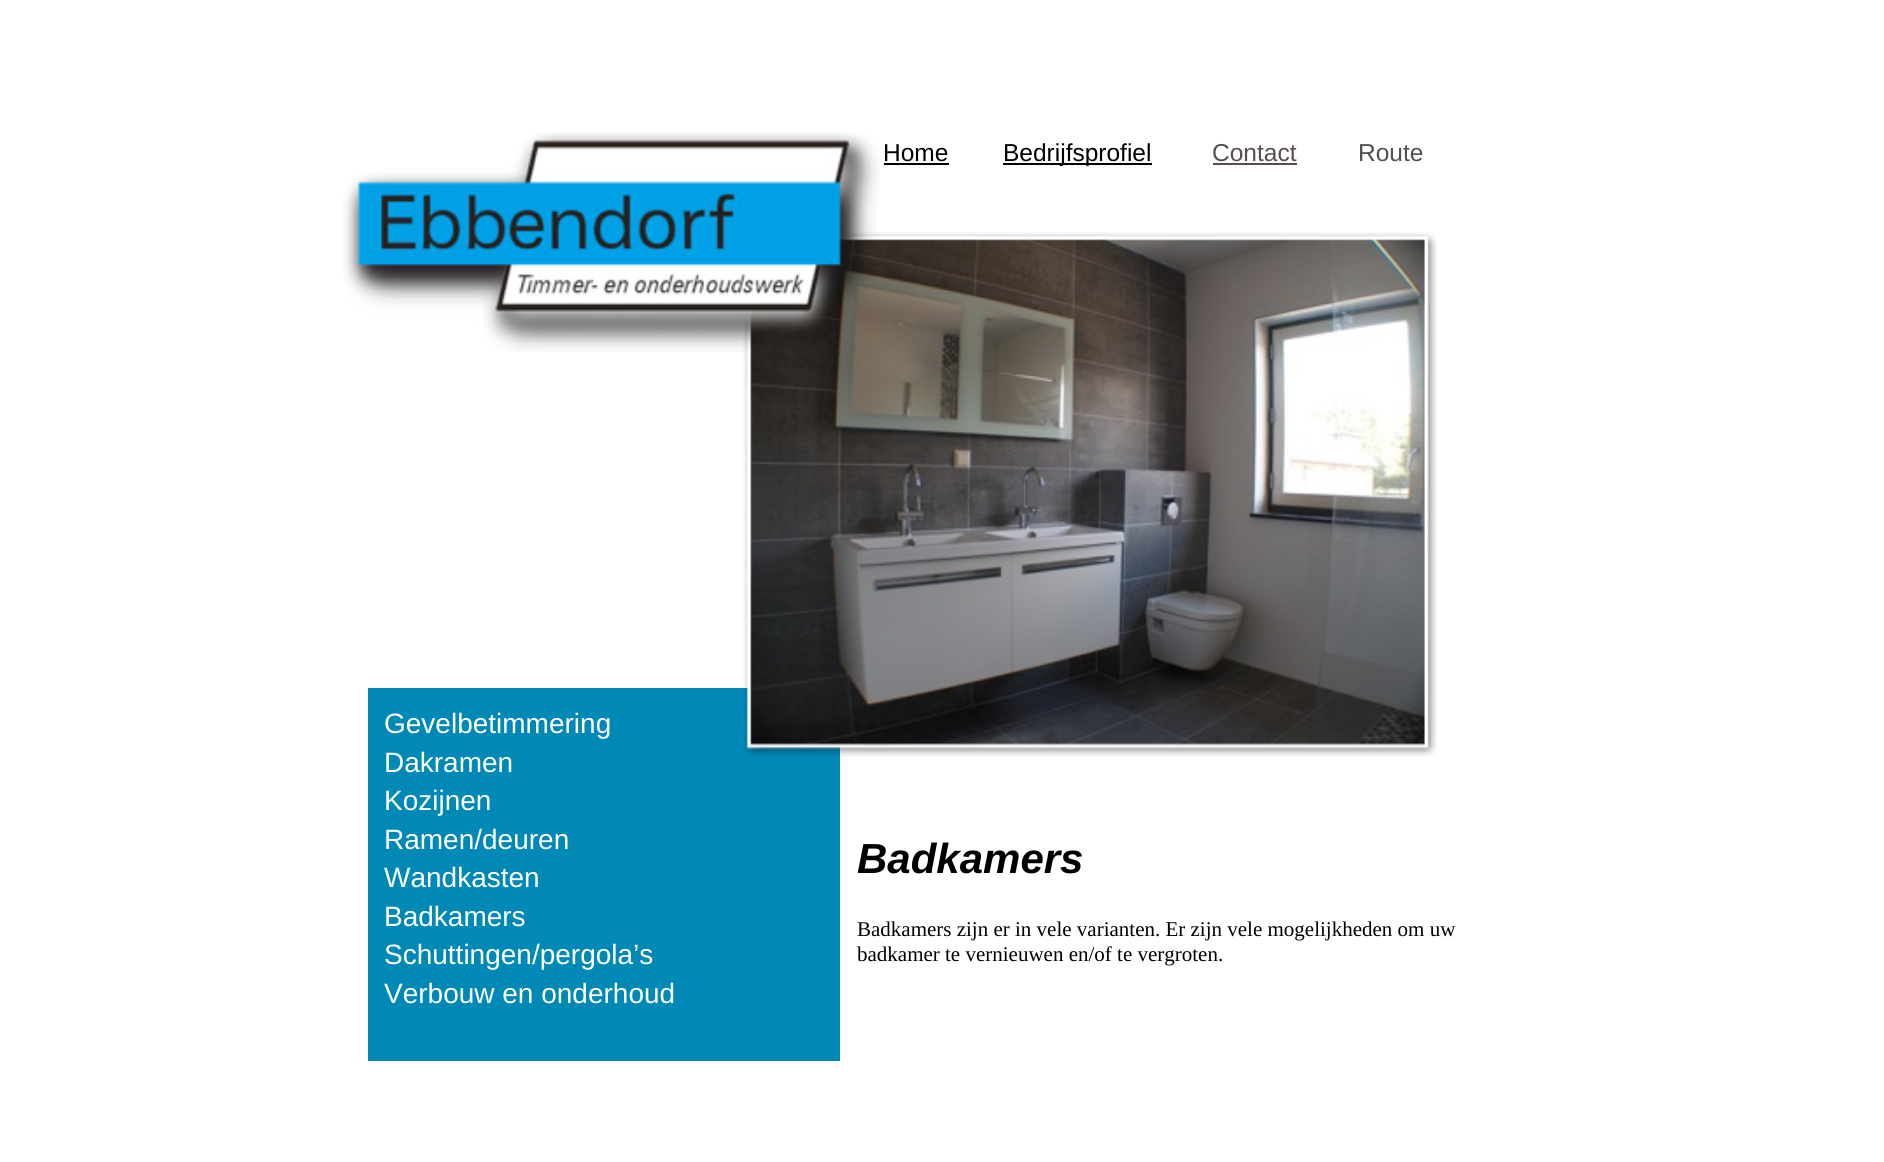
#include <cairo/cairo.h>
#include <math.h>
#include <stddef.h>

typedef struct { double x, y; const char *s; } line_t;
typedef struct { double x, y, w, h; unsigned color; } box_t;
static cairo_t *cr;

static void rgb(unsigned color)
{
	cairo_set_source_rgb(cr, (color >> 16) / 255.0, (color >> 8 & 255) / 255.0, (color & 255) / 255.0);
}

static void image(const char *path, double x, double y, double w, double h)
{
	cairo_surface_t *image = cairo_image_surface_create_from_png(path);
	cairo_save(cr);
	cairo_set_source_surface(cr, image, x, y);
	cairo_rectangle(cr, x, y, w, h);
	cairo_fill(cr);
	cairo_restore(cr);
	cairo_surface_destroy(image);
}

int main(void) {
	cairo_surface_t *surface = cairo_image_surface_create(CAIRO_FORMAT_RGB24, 1884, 1162);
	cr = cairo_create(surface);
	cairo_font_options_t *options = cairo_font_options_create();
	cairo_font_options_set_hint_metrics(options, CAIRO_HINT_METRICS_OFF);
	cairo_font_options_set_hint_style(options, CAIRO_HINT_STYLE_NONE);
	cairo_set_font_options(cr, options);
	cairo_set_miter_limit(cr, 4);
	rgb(0xffffff);
	cairo_paint(cr);
	{
		static const box_t items[] = {
			{884, 163, 65, 2, 0x000000},
			{1003, 163, 149, 2, 0x000000},
			{1213, 163, 84, 2, 0x584d4d},
			{368, 688, 472, 373, 0x0088b7},
		};
		for (size_t i = 0; i < sizeof items / sizeof *items; i++) {
			rgb(items[i].color);
			cairo_rectangle(cr, items[i].x, items[i].y, items[i].w, items[i].h);
			cairo_fill(cr);
		}
	}
	image("img/2.png", 743, 232, 694, 525);
	image("img/1.png", 343, 132, 537, 220);
	cairo_select_font_face(cr, "Liberation Sans", CAIRO_FONT_SLANT_NORMAL, CAIRO_FONT_WEIGHT_NORMAL);
	cairo_set_font_size(cr, 24.5);
	rgb(0x000000);
	cairo_move_to(cr, 883, 161);
	cairo_show_text(cr, "Home");
	cairo_move_to(cr, 1003, 161);
	cairo_show_text(cr, "Bedrijfsprofiel");
	rgb(0x584d4d);
	cairo_move_to(cr, 1212, 161);
	cairo_show_text(cr, "Contact");
	rgb(0x515151);
	cairo_move_to(cr, 1358, 161);
	cairo_show_text(cr, "Route");
	cairo_set_font_size(cr, 28);
	rgb(0xffffff);
	{
		static const line_t items[] = {
			{384, 733, "Gevelbetimmering"},
			{384, 772, "Dakramen"},
			{384, 810, "Kozijnen"},
			{384, 849, "Ramen/deuren"},
			{384, 887, "Wandkasten"},
			{384, 926, "Badkamers"},
			{384, 964, "Schuttingen/pergola’s"},
			{384, 1003, "Verbouw en onderhoud"},
		};
		for (size_t i = 0; i < sizeof items / sizeof *items; i++) {
			cairo_move_to(cr, items[i].x, items[i].y);
			cairo_show_text(cr, items[i].s);
		}
	}
	cairo_select_font_face(cr, "Liberation Sans", CAIRO_FONT_SLANT_ITALIC, CAIRO_FONT_WEIGHT_BOLD);
	cairo_set_font_size(cr, 42);
	rgb(0x000000);
	cairo_move_to(cr, 857, 873);
	cairo_show_text(cr, "Badkamers");
	cairo_select_font_face(cr, "Liberation Serif", CAIRO_FONT_SLANT_NORMAL, CAIRO_FONT_WEIGHT_NORMAL);
	cairo_set_font_size(cr, 21);
	cairo_move_to(cr, 857, 936);
	cairo_show_text(cr, "Badkamers zijn er in vele varianten. Er zijn vele mogelijkheden om uw");
	cairo_move_to(cr, 857, 961);
	cairo_show_text(cr, "badkamer te vernieuwen en/of te vergroten.");
	cairo_surface_write_to_png(surface, "page.png");
	cairo_font_options_destroy(options);
	cairo_destroy(cr);
	cairo_surface_destroy(surface);
	return 0;
}
